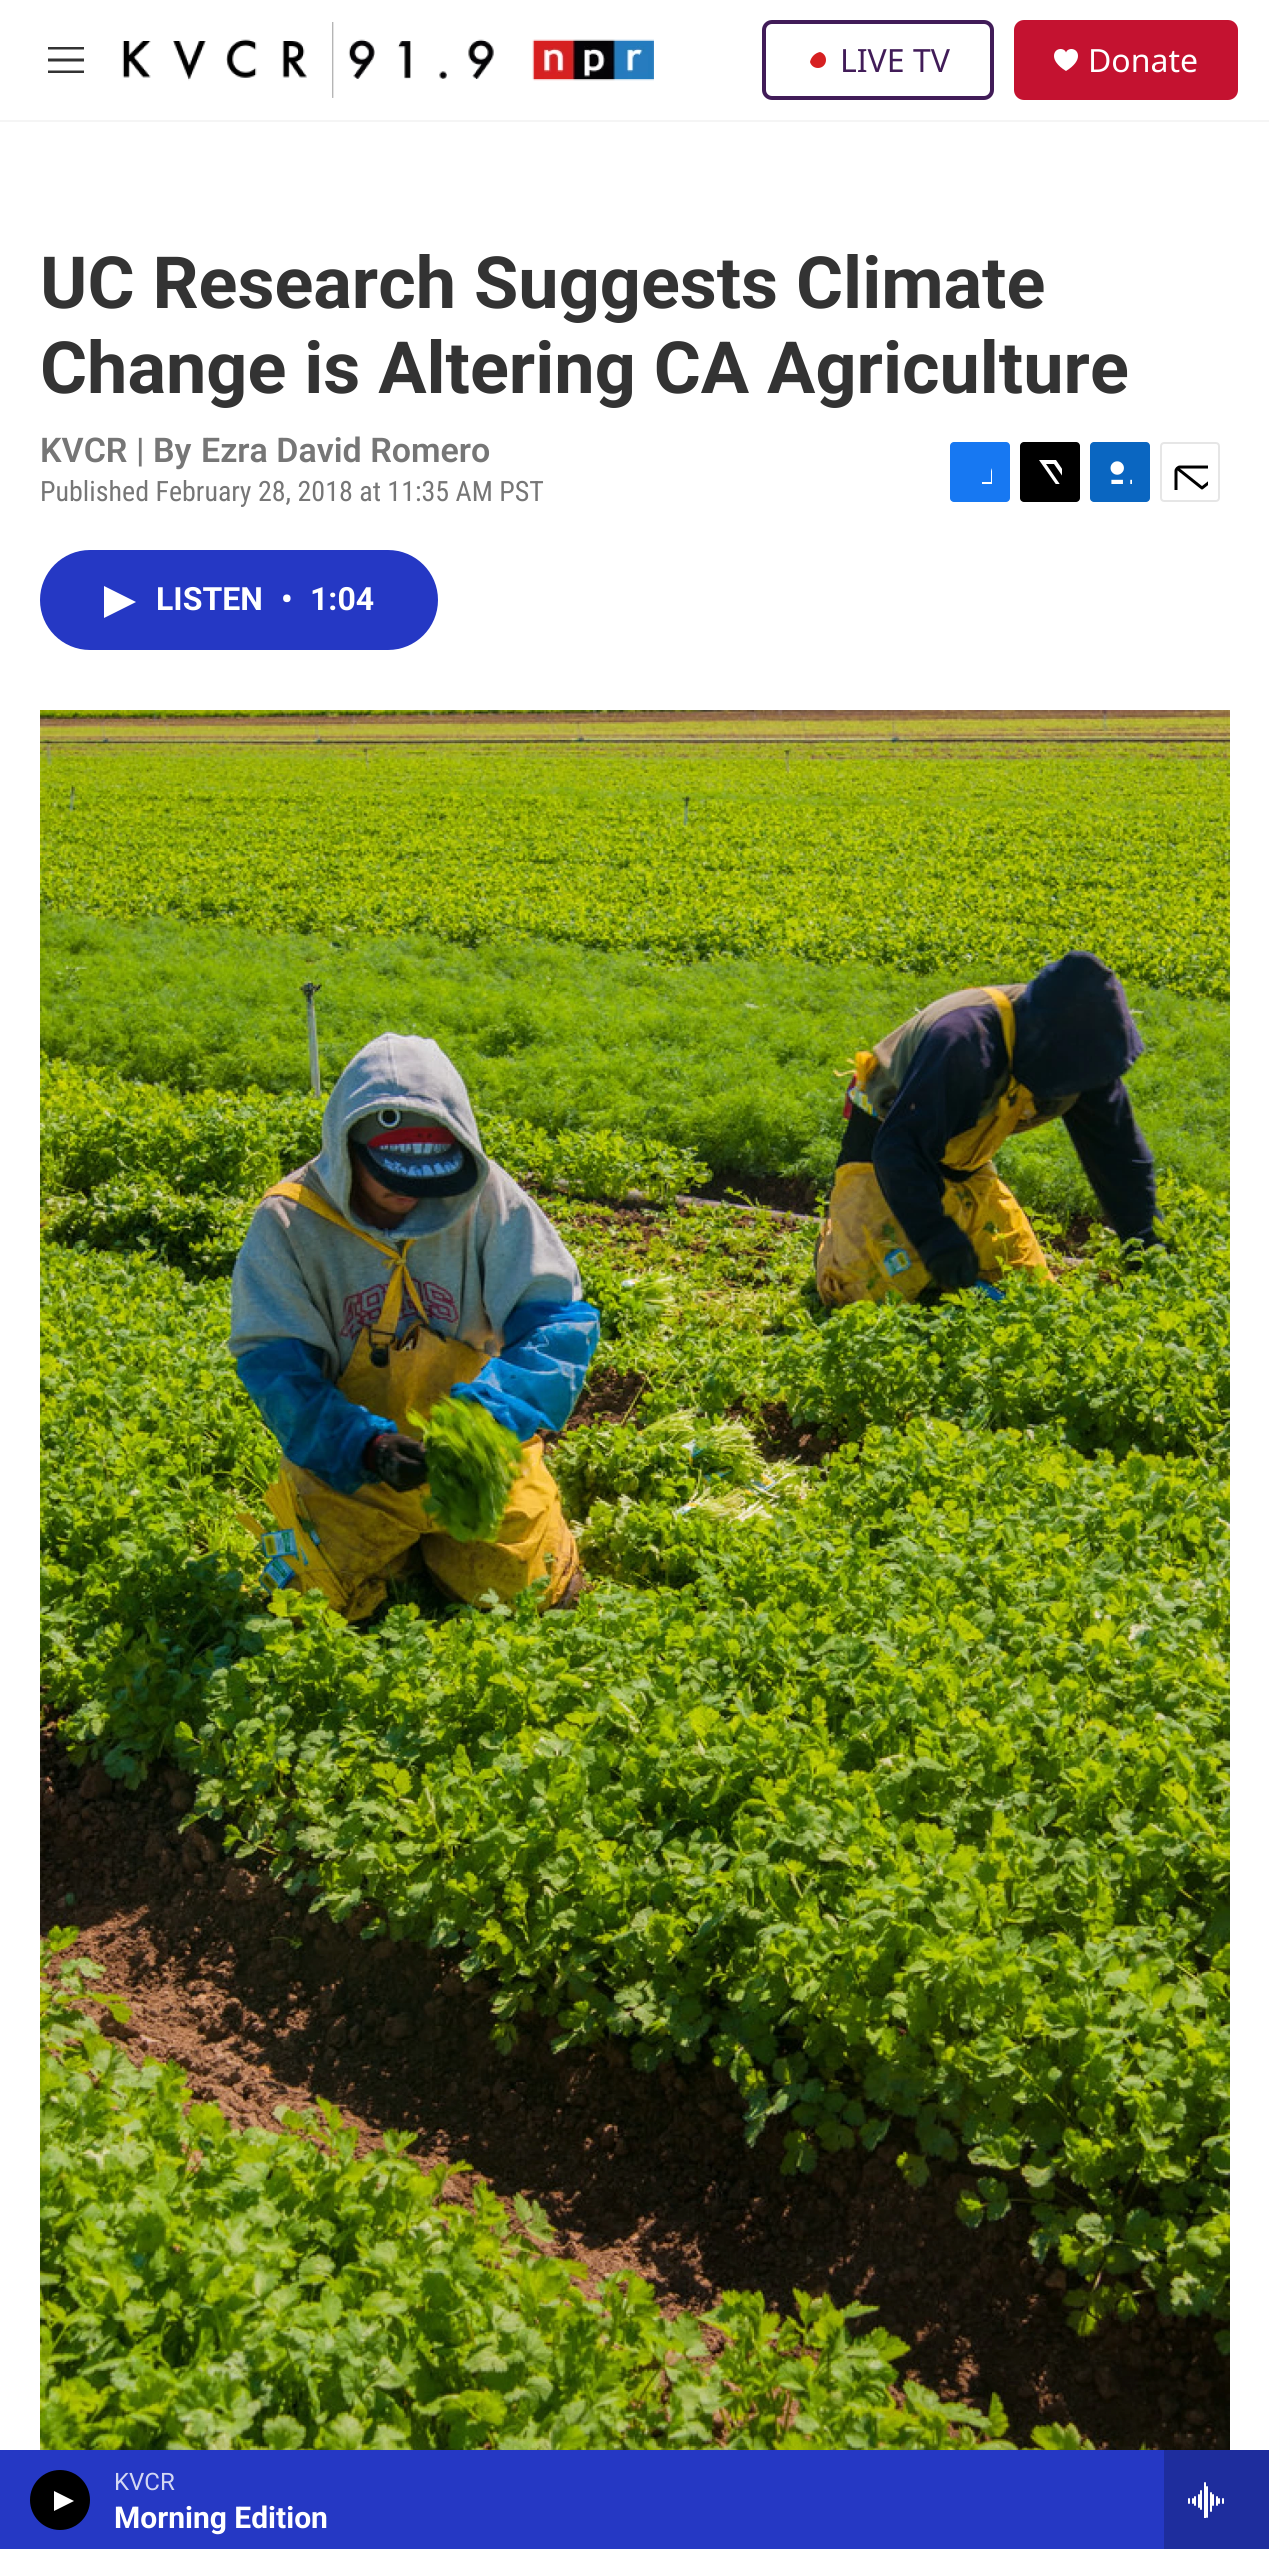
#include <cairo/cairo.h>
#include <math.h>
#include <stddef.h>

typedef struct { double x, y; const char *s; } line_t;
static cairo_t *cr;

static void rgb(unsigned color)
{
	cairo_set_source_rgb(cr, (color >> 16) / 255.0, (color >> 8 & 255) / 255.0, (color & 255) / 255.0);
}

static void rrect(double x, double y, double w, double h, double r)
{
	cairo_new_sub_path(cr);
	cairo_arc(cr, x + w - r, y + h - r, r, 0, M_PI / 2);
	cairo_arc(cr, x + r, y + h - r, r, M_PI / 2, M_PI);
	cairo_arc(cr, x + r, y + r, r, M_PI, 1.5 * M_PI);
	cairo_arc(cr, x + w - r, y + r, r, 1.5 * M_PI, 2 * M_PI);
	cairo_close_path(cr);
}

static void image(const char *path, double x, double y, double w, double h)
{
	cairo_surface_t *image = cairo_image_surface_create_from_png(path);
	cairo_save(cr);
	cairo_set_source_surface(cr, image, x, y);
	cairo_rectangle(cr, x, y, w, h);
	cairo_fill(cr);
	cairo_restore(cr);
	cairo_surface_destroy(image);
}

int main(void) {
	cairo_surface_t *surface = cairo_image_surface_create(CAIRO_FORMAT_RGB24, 1269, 2549);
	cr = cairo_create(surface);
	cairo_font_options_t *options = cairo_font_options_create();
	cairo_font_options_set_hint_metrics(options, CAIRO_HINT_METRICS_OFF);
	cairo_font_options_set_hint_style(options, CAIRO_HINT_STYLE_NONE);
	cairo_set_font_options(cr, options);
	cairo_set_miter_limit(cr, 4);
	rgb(0xffffff);
	cairo_paint(cr);
	rgb(0xf5f5f5);
	cairo_rectangle(cr, 0, 120, 1269, 2);
	cairo_fill(cr);
	rgb(0x333333);
	cairo_set_fill_rule(cr, CAIRO_FILL_RULE_EVEN_ODD);
	cairo_new_path(cr);
	cairo_move_to(cr, 48, 61.5);
	cairo_line_to(cr, 48, 58.5);
	cairo_line_to(cr, 84, 58.5);
	cairo_line_to(cr, 84, 61.5);
	cairo_close_path(cr);
	cairo_move_to(cr, 48, 49.5);
	cairo_line_to(cr, 48, 47);
	cairo_line_to(cr, 84, 47);
	cairo_line_to(cr, 84, 49.5);
	cairo_close_path(cr);
	cairo_move_to(cr, 48, 73);
	cairo_line_to(cr, 48, 70.5);
	cairo_line_to(cr, 84, 70.5);
	cairo_line_to(cr, 84, 73);
	cairo_close_path(cr);
	cairo_fill(cr);
	image("img/1.png", 122, 22, 532, 76);
	rrect(764, 22, 228, 76, 8);
	rgb(0x411c58);
	cairo_set_line_width(cr, 4);
	cairo_stroke(cr);
	rgb(0xd62021);
	cairo_set_fill_rule(cr, CAIRO_FILL_RULE_WINDING);
	cairo_new_path(cr);
	cairo_move_to(cr, 820, 52);
	cairo_curve_to(cr, 823.5, 53, 826, 56, 826, 60);
	cairo_curve_to(cr, 826, 64.5, 822.5, 68, 818, 68);
	cairo_curve_to(cr, 814, 68, 811, 65.5, 810, 62);
	cairo_curve_to(cr, 811, 57, 815, 53, 820, 52);
	cairo_close_path(cr);
	cairo_fill(cr);
	rgb(0xc41230);
	rrect(1014, 20, 224, 80, 10);
	cairo_fill(cr);
	image("img/2.png", 1054, 49, 24, 22);
	rgb(0x2538c4);
	cairo_rectangle(cr, 0, 2450, 1164, 99);
	cairo_fill(cr);
	rgb(0x000000);
	cairo_arc(cr, 60, 2500, 30, 0, 2 * M_PI);
	cairo_fill(cr);
	rgb(0xffffff);
	cairo_new_path(cr);
	cairo_move_to(cr, 54, 2491);
	cairo_line_to(cr, 74, 2501);
	cairo_line_to(cr, 54, 2511);
	cairo_close_path(cr);
	cairo_fill(cr);
	rgb(0x1e2d9d);
	cairo_rectangle(cr, 1164, 2450, 105, 99);
	cairo_fill(cr);
	image("img/3.png", 1188, 2482, 36, 36);
	rgb(0x1778f2);
	rrect(950, 442, 60, 60, 4);
	cairo_fill(cr);
	cairo_save(cr);
	cairo_rectangle(cr, 968, 460, 24, 24);
	cairo_clip(cr);
	rgb(0xffffff);
	cairo_new_path(cr);
	cairo_move_to(cr, 1001, 502);
	cairo_line_to(cr, 991, 502);
	cairo_line_to(cr, 991, 492);
	cairo_line_to(cr, 982, 492);
	cairo_line_to(cr, 982, 482);
	cairo_line_to(cr, 991, 482);
	cairo_line_to(cr, 991, 471);
	cairo_curve_to(cr, 993, 462, 1002, 460, 1010, 461);
	cairo_line_to(cr, 1010, 470);
	cairo_curve_to(cr, 999, 470, 1001, 473, 1001, 482);
	cairo_line_to(cr, 1010, 482);
	cairo_line_to(cr, 1010, 487);
	cairo_line_to(cr, 1009, 492);
	cairo_line_to(cr, 1001, 492);
	cairo_close_path(cr);
	cairo_fill(cr);
	cairo_restore(cr);
	rgb(0x000000);
	rrect(1020, 442, 60, 60, 4);
	cairo_fill(cr);
	cairo_save(cr);
	cairo_rectangle(cr, 1038, 460, 24, 24);
	cairo_clip(cr);
	rgb(0xffffff);
	cairo_new_path(cr);
	cairo_move_to(cr, 1074, 485);
	cairo_line_to(cr, 1080, 494);
	cairo_curve_to(cr, 1080, 496, 1081, 499, 1079, 500);
	cairo_line_to(cr, 1054, 464);
	cairo_line_to(cr, 1046, 464);
	cairo_line_to(cr, 1072, 502);
	cairo_line_to(cr, 1067, 502);
	cairo_line_to(cr, 1064, 497);
	cairo_line_to(cr, 1060, 502);
	cairo_line_to(cr, 1054, 502);
	cairo_line_to(cr, 1062, 493);
	cairo_line_to(cr, 1039, 460);
	cairo_line_to(cr, 1056, 460);
	cairo_line_to(cr, 1071, 482);
	cairo_line_to(cr, 1080, 472);
	cairo_line_to(cr, 1080, 478);
	cairo_close_path(cr);
	cairo_fill(cr);
	cairo_restore(cr);
	rgb(0x0a66c1);
	rrect(1090, 442, 60, 60, 4);
	cairo_fill(cr);
	image("img/4.png", 1110, 461, 22, 23);
	rrect(1161, 443, 58, 58, 3);
	rgb(0xe6e6e6);
	cairo_set_line_width(cr, 2);
	cairo_stroke(cr);
	cairo_save(cr);
	cairo_rectangle(cr, 1172, 454, 36, 36);
	cairo_clip(cr);
	cairo_new_path(cr);
	cairo_move_to(cr, 1228, 498);
	cairo_curve_to(cr, 1228, 500, 1226, 501.5, 1224, 501.5);
	cairo_line_to(cr, 1180, 501.5);
	cairo_curve_to(cr, 1178, 501.5, 1176, 500, 1176, 498);
	cairo_line_to(cr, 1176, 471);
	cairo_curve_to(cr, 1176, 469, 1178, 467, 1180, 467);
	cairo_line_to(cr, 1224, 467);
	cairo_curve_to(cr, 1226, 467, 1228, 469, 1228, 471);
	cairo_close_path(cr);
	cairo_move_to(cr, 1226.5, 468.5);
	cairo_line_to(cr, 1202, 488);
	cairo_line_to(cr, 1177.5, 468.5);
	rgb(0x000000);
	cairo_set_line_width(cr, 3);
	cairo_set_line_cap(cr, CAIRO_LINE_CAP_ROUND);
	cairo_set_line_join(cr, CAIRO_LINE_JOIN_ROUND);
	cairo_stroke(cr);
	cairo_restore(cr);
	rgb(0x2538c4);
	rrect(40, 550, 398, 100, 50);
	cairo_fill(cr);
	rgb(0xffffff);
	cairo_new_path(cr);
	cairo_move_to(cr, 104, 586);
	cairo_line_to(cr, 136, 602);
	cairo_line_to(cr, 104, 618);
	cairo_close_path(cr);
	cairo_fill(cr);
	image("img/5.png", 40, 710, 1190, 1740);
	cairo_select_font_face(cr, "Noto Sans", CAIRO_FONT_SLANT_NORMAL, CAIRO_FONT_WEIGHT_NORMAL);
	cairo_set_font_size(cr, 32);
	rgb(0x411c58);
	cairo_move_to(cr, 840, 72);
	cairo_show_text(cr, "LIVE TV");
	rgb(0xffffff);
	cairo_move_to(cr, 1088, 72);
	cairo_show_text(cr, "Donate");
	cairo_select_font_face(cr, "Roboto", CAIRO_FONT_SLANT_NORMAL, CAIRO_FONT_WEIGHT_NORMAL);
	cairo_set_font_size(cr, 24);
	rgb(0xd3d7f3);
	cairo_move_to(cr, 114, 2490);
	cairo_show_text(cr, "KVCR");
	cairo_select_font_face(cr, "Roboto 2", CAIRO_FONT_SLANT_NORMAL, CAIRO_FONT_WEIGHT_BOLD);
	cairo_set_font_size(cr, 30);
	rgb(0xffffff);
	cairo_move_to(cr, 114, 2528);
	cairo_show_text(cr, "Morning Edition");
	cairo_select_font_face(cr, "Roboto", CAIRO_FONT_SLANT_NORMAL, CAIRO_FONT_WEIGHT_BOLD);
	cairo_set_font_size(cr, 72);
	rgb(0x333333);
	cairo_move_to(cr, 40, 308);
	cairo_show_text(cr, "UC Research Suggests Climate");
	cairo_move_to(cr, 40, 393);
	cairo_show_text(cr, "Change is Altering CA Agriculture");
	cairo_select_font_face(cr, "Roboto SemiBold", CAIRO_FONT_SLANT_NORMAL, CAIRO_FONT_WEIGHT_NORMAL);
	cairo_set_font_size(cr, 34);
	rgb(0x767676);
	{
		static const line_t items[] = {
			{40, 462, "KVCR |"},
			{153, 462, "By"},
			{201, 462, "Ezra David Romero"},
		};
		for (size_t i = 0; i < sizeof items / sizeof *items; i++) {
			cairo_move_to(cr, items[i].x, items[i].y);
			cairo_show_text(cr, items[i].s);
		}
	}
	cairo_select_font_face(cr, "Roboto Condensed", CAIRO_FONT_SLANT_NORMAL, CAIRO_FONT_WEIGHT_NORMAL);
	cairo_set_font_size(cr, 28);
	cairo_move_to(cr, 40, 501);
	cairo_show_text(cr, "Published February 28, 2018 at 11:35 AM PST");
	cairo_select_font_face(cr, "Roboto 2", CAIRO_FONT_SLANT_NORMAL, CAIRO_FONT_WEIGHT_BOLD);
	cairo_set_font_size(cr, 32);
	rgb(0xffffff);
	{
		static const line_t items[] = {
			{156, 610, "LISTEN"},
			{281, 610, "•"},
			{310, 610, "1:04"},
		};
		for (size_t i = 0; i < sizeof items / sizeof *items; i++) {
			cairo_move_to(cr, items[i].x, items[i].y);
			cairo_show_text(cr, items[i].s);
		}
	}
	cairo_surface_write_to_png(surface, "page.png");
	cairo_font_options_destroy(options);
	cairo_destroy(cr);
	cairo_surface_destroy(surface);
	return 0;
}
